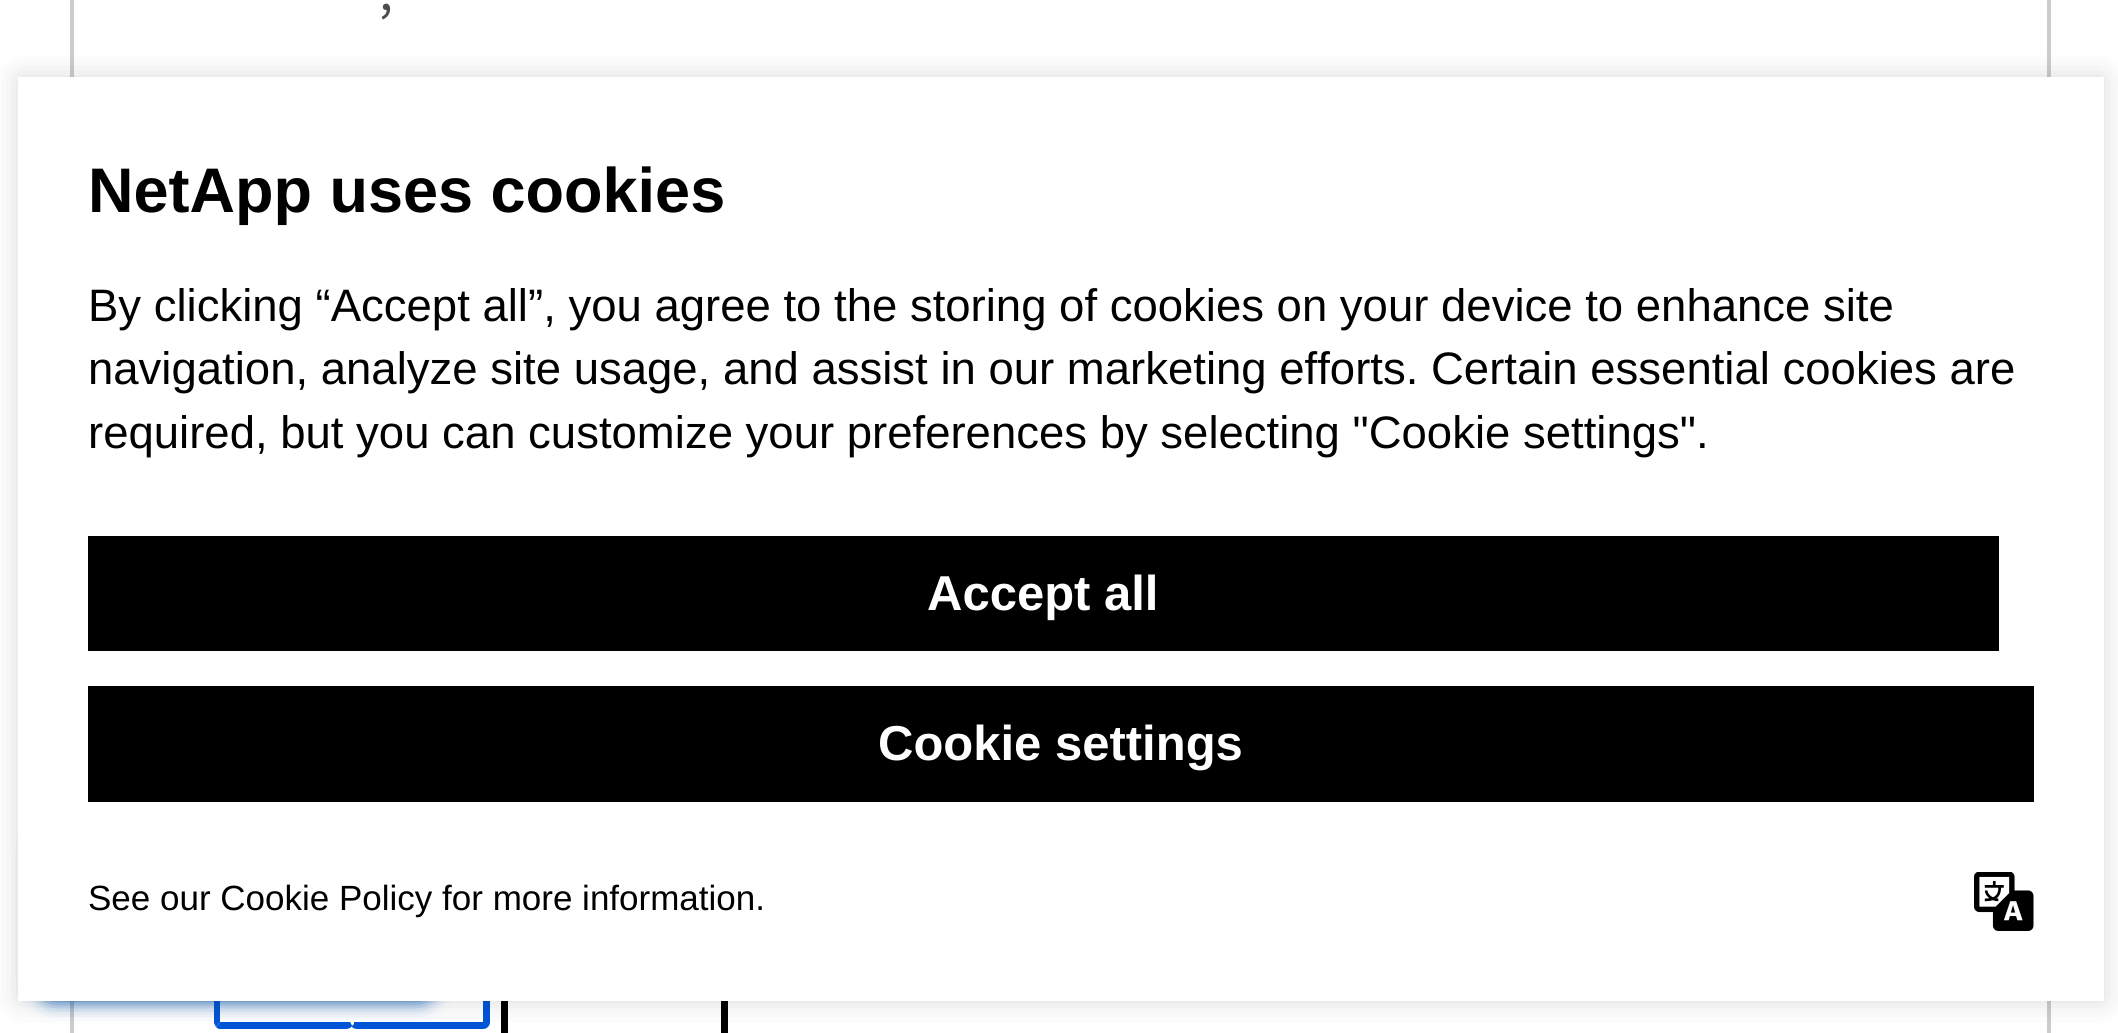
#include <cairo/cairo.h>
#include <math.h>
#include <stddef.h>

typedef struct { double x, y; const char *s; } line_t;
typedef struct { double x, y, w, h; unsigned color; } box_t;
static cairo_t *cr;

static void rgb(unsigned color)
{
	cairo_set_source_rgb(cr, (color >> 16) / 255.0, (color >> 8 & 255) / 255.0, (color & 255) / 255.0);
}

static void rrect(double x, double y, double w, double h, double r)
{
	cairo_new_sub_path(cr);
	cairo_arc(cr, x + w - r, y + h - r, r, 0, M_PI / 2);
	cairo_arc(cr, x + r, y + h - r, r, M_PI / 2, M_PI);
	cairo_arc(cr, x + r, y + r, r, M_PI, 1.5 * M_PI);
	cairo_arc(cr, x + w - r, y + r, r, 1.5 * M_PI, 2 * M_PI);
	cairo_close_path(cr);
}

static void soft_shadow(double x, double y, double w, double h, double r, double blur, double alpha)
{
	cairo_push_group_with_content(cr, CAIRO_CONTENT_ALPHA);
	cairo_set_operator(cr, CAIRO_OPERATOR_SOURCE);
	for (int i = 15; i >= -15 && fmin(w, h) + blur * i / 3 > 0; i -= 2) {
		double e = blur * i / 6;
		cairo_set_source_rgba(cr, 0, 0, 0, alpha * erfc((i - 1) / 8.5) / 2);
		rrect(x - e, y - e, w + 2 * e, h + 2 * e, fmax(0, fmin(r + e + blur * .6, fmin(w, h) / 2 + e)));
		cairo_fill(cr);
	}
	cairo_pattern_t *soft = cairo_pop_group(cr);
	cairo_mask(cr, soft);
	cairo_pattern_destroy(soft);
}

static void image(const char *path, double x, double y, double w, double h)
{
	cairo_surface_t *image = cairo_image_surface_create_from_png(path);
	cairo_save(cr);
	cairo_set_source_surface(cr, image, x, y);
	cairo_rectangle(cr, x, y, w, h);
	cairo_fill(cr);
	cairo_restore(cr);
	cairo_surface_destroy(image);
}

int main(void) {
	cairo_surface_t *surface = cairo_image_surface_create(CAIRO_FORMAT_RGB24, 2118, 1033);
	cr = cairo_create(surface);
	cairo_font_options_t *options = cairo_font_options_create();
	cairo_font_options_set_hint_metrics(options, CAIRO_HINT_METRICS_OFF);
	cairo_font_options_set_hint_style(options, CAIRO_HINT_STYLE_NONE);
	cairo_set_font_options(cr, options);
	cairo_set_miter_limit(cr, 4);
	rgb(0xffffff);
	cairo_paint(cr);
	cairo_rectangle(cr, 72, -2, 1977, 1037);
	rgb(0xcccccc);
	cairo_set_line_width(cr, 4);
	cairo_stroke(cr);
	rrect(352, 884, 136, 143, 5);
	rgb(0x0054d7);
	cairo_stroke(cr);
	rgb(0xffffff);
	cairo_new_path(cr);
	cairo_move_to(cr, 354, 1024);
	cairo_line_to(cr, 352, 1026);
	cairo_line_to(cr, 350, 1022);
	cairo_line_to(cr, 350, 889);
	cairo_line_to(cr, 352, 885);
	cairo_line_to(cr, 354, 887);
	cairo_close_path(cr);
	cairo_fill(cr);
	rgb(0x0054d7);
	cairo_new_path(cr);
	cairo_move_to(cr, 220, 1029);
	cairo_line_to(cr, 346, 1029);
	cairo_curve_to(cr, 348, 1029, 351, 1028, 352, 1026);
	cairo_line_to(cr, 350, 1022);
	cairo_line_to(cr, 220, 1022);
	cairo_line_to(cr, 216, 1027);
	cairo_curve_to(cr, 217, 1028, 218, 1029, 220, 1029);
	cairo_close_path(cr);
	cairo_fill(cr);
	cairo_new_path(cr);
	cairo_move_to(cr, 220, 889);
	cairo_line_to(cr, 216, 884);
	cairo_line_to(cr, 214, 888);
	cairo_line_to(cr, 214, 1023);
	cairo_line_to(cr, 216, 1027);
	cairo_line_to(cr, 220, 1022);
	cairo_close_path(cr);
	cairo_fill(cr);
	cairo_rectangle(cr, 483, 1001, 3, 25);
	cairo_fill(cr);
	cairo_rectangle(cr, 354, 1022, 133, 3);
	cairo_fill(cr);
	cairo_rectangle(cr, 504.5, 924.5, 220, 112);
	rgb(0x000000);
	cairo_set_line_width(cr, 7);
	cairo_stroke(cr);
	rgb(0x0057b7);
	soft_shadow(35, 826, 403, 175, 18, 9, 1);
	rgb(0x000000);
	soft_shadow(18, 77, 2086, 924, 0, 14, 0.15);
	{
		static const box_t items[] = {
			{18, 77, 2086, 924, 0xffffff},
			{88, 536, 1911, 115, 0x000000},
			{88, 686, 1946, 116, 0x000000},
		};
		for (size_t i = 0; i < sizeof items / sizeof *items; i++) {
			rgb(items[i].color);
			cairo_rectangle(cr, items[i].x, items[i].y, items[i].w, items[i].h);
			cairo_fill(cr);
		}
	}
	image("img/1.png", 1974, 872, 60, 59);
	cairo_select_font_face(cr, "Source Sans Pro", CAIRO_FONT_SLANT_NORMAL, CAIRO_FONT_WEIGHT_NORMAL);
	cairo_set_font_size(cr, 56);
	rgb(0x4d4d4d);
	cairo_move_to(cr, 379, 10);
	cairo_show_text(cr, ",");
	cairo_select_font_face(cr, "Liberation Sans", CAIRO_FONT_SLANT_NORMAL, CAIRO_FONT_WEIGHT_BOLD);
	cairo_set_font_size(cr, 63);
	rgb(0x000000);
	cairo_move_to(cr, 88, 212);
	cairo_show_text(cr, "NetApp uses cookies");
	cairo_select_font_face(cr, "Liberation Sans", CAIRO_FONT_SLANT_NORMAL, CAIRO_FONT_WEIGHT_NORMAL);
	cairo_set_font_size(cr, 45.5);
	{
		static const line_t items[] = {
			{88, 321, "By clicking “Accept all”, you agree to the storing of cookies on your device to enhance site"},
			{88, 384, "navigation, analyze site usage, and assist in our marketing efforts. Certain essential cookies are"},
			{88, 448, "required, but you can customize your preferences by selecting \"Cookie settings\"."},
		};
		for (size_t i = 0; i < sizeof items / sizeof *items; i++) {
			cairo_move_to(cr, items[i].x, items[i].y);
			cairo_show_text(cr, items[i].s);
		}
	}
	cairo_select_font_face(cr, "Liberation Sans", CAIRO_FONT_SLANT_NORMAL, CAIRO_FONT_WEIGHT_BOLD);
	cairo_set_font_size(cr, 49);
	rgb(0xffffff);
	cairo_move_to(cr, 927, 610);
	cairo_show_text(cr, "Accept all");
	cairo_move_to(cr, 878, 760);
	cairo_show_text(cr, "Cookie settings");
	cairo_select_font_face(cr, "Liberation Sans", CAIRO_FONT_SLANT_NORMAL, CAIRO_FONT_WEIGHT_NORMAL);
	cairo_set_font_size(cr, 35);
	rgb(0x000000);
	cairo_move_to(cr, 88, 910);
	cairo_show_text(cr, "See our Cookie Policy for more information.");
	cairo_surface_write_to_png(surface, "page.png");
	cairo_font_options_destroy(options);
	cairo_destroy(cr);
	cairo_surface_destroy(surface);
	return 0;
}
